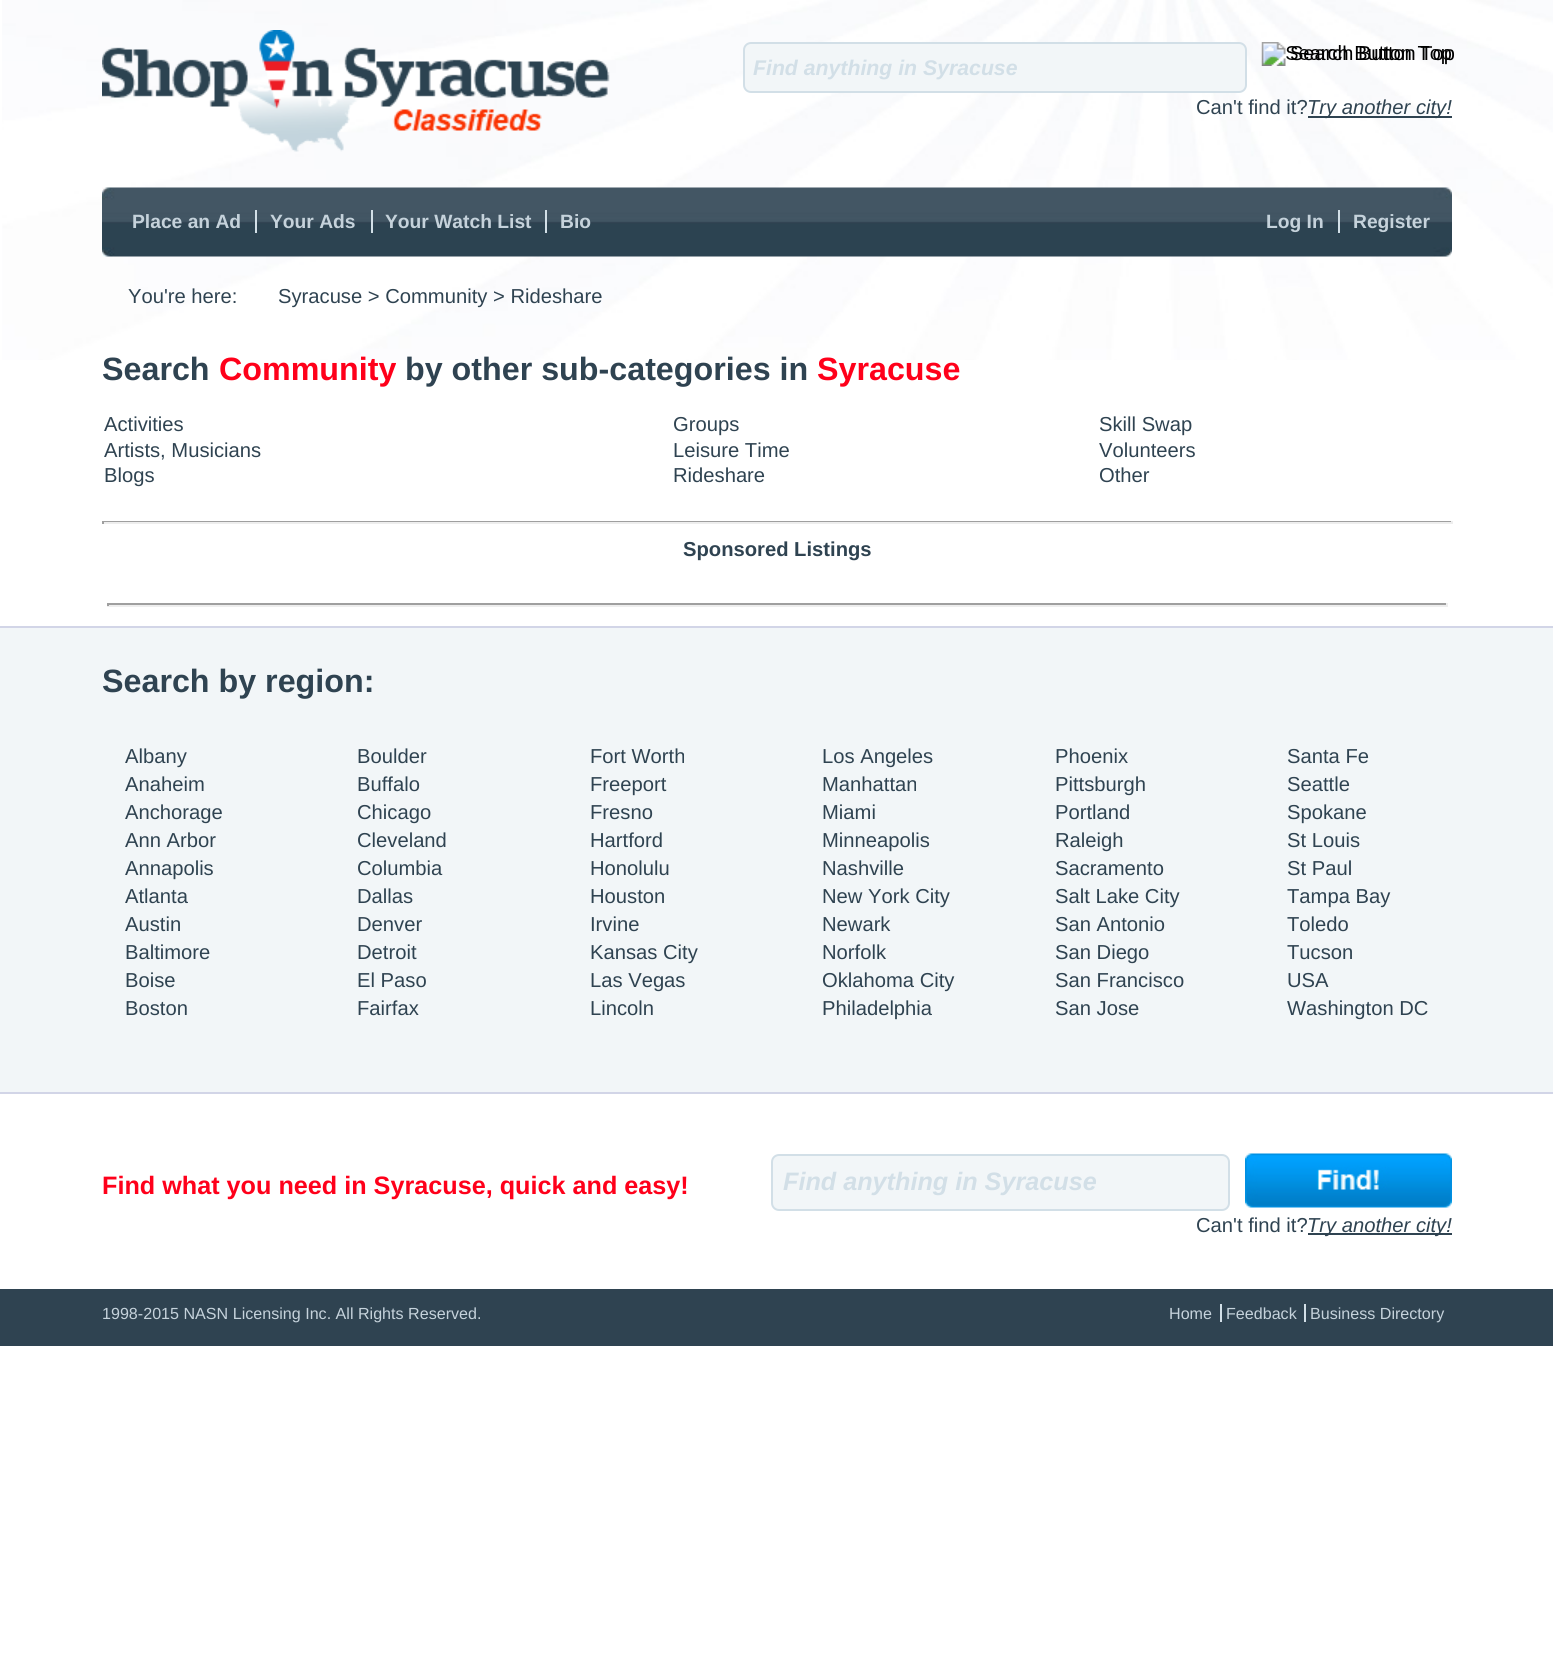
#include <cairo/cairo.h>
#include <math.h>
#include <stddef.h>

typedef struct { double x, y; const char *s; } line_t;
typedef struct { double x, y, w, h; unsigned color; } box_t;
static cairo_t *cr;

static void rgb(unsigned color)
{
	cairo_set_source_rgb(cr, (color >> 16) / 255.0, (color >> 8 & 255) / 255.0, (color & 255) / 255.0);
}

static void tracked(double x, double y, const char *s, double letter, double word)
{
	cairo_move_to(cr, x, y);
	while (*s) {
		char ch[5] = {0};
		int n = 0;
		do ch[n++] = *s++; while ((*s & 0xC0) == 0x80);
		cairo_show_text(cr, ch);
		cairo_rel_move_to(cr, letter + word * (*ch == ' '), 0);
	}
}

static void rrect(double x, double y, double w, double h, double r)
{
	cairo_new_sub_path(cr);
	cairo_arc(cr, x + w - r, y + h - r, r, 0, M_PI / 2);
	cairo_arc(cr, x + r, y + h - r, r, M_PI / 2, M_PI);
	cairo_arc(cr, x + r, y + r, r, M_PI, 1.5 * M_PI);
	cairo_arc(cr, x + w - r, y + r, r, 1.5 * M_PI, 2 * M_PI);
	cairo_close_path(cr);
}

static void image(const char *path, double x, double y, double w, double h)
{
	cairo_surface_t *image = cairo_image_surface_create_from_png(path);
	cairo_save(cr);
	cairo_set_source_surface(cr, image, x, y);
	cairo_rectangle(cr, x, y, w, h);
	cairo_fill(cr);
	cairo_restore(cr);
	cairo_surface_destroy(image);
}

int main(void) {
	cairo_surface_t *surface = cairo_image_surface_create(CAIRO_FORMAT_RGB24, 1553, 1674);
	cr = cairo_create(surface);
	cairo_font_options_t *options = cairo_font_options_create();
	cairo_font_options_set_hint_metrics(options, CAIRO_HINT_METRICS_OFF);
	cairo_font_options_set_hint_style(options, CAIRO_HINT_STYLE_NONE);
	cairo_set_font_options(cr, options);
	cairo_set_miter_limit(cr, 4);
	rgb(0xffffff);
	cairo_paint(cr);
	image("img/1.png", 2, 0, 1551, 360);
	image("img/2.png", 102, 30, 508, 122);
	image("img/3.png", 1261, 42, 190, 24);
	rgb(0xf2f6f8);
	rrect(744, 43, 502, 49, 7);
	cairo_fill_preserve(cr);
	rgb(0xd2dfe7);
	cairo_stroke(cr);
	rgb(0x2f4351);
	cairo_rectangle(cr, 1308, 116, 144, 2);
	cairo_fill(cr);
	image("img/4.png", 102, 187, 1350, 70);
	{
		static const box_t items[] = {
			{255, 210, 2, 23, 0xd2dfe7},
			{371, 210, 2, 23, 0xd2dfe7},
			{545, 210, 2, 23, 0xd2dfe7},
			{1338, 210, 2, 23, 0xd2dfe7},
			{102, 521, 1350, 1, 0x9f9f9f},
			{1451, 521, 2, 3, 0xeeeeee},
			{102, 522, 1350, 2, 0xeeeeee},
			{102, 521, 2, 3, 0x9f9f9f},
			{107, 603, 1341, 2, 0x9f9f9f},
			{1446, 603, 2, 3, 0xeeeeee},
			{107, 605, 1341, 2, 0xeeeeee},
			{107, 603, 2, 3, 0x9f9f9f},
			{0, 628, 1553, 464, 0xf2f6f8},
			{0, 626, 1553, 2, 0xd2d5e7},
			{0, 1092, 1553, 2, 0xd2d5e7},
		};
		for (size_t i = 0; i < sizeof items / sizeof *items; i++) {
			rgb(items[i].color);
			cairo_rectangle(cr, items[i].x, items[i].y, items[i].w, items[i].h);
			cairo_fill(cr);
		}
	}
	rgb(0xf2f6f8);
	rrect(772, 1155, 457, 55, 7);
	cairo_fill_preserve(cr);
	rgb(0xd2dfe7);
	cairo_stroke(cr);
	image("img/5.png", 1245, 1153, 207, 55);
	{
		static const box_t items[] = {
			{1308, 1233, 144, 2, 0x2f4351},
			{0, 1289, 1553, 57, 0x2f4351},
			{1220, 1304, 2, 18, 0xd2dfe7},
			{1304, 1304, 2, 18, 0xd2dfe7},
		};
		for (size_t i = 0; i < sizeof items / sizeof *items; i++) {
			rgb(items[i].color);
			cairo_rectangle(cr, items[i].x, items[i].y, items[i].w, items[i].h);
			cairo_fill(cr);
		}
	}
	cairo_select_font_face(cr, "Liberation Sans", CAIRO_FONT_SLANT_NORMAL, CAIRO_FONT_WEIGHT_NORMAL);
	cairo_set_font_size(cr, 20);
	rgb(0x000000);
	tracked(1290, 60, "Search Button Top", 0, -1);
	cairo_select_font_face(cr, "Liberation Sans", CAIRO_FONT_SLANT_ITALIC, CAIRO_FONT_WEIGHT_BOLD);
	cairo_set_font_size(cr, 21.25);
	rgb(0xd2dfe7);
	cairo_move_to(cr, 753, 75);
	cairo_show_text(cr, "Find anything in Syracuse");
	cairo_select_font_face(cr, "Liberation Sans", CAIRO_FONT_SLANT_NORMAL, CAIRO_FONT_WEIGHT_NORMAL);
	cairo_set_font_size(cr, 20.2);
	rgb(0x2f4351);
	cairo_move_to(cr, 1196, 114);
	cairo_show_text(cr, "Can't find it?");
	cairo_select_font_face(cr, "Liberation Sans", CAIRO_FONT_SLANT_ITALIC, CAIRO_FONT_WEIGHT_NORMAL);
	cairo_move_to(cr, 1307, 114);
	cairo_show_text(cr, "Try another city!");
	cairo_select_font_face(cr, "Liberation Sans", CAIRO_FONT_SLANT_NORMAL, CAIRO_FONT_WEIGHT_BOLD);
	cairo_set_font_size(cr, 19.25);
	rgb(0xc5d2db);
	{
		static const line_t items[] = {
			{132, 228, "Place an Ad"},
			{270, 228, "Your Ads"},
			{385, 228, "Your Watch List"},
			{560, 228, "Bio"},
			{1266, 228, "Log In"},
			{1353, 228, "Register"},
		};
		for (size_t i = 0; i < sizeof items / sizeof *items; i++) {
			cairo_move_to(cr, items[i].x, items[i].y);
			cairo_show_text(cr, items[i].s);
		}
	}
	cairo_select_font_face(cr, "Liberation Sans", CAIRO_FONT_SLANT_NORMAL, CAIRO_FONT_WEIGHT_NORMAL);
	cairo_set_font_size(cr, 20.2);
	rgb(0x2f4351);
	cairo_move_to(cr, 128, 303);
	cairo_show_text(cr, "You're here:");
	cairo_move_to(cr, 278, 303);
	cairo_show_text(cr, "Syracuse > Community > Rideshare");
	cairo_select_font_face(cr, "Liberation Sans", CAIRO_FONT_SLANT_NORMAL, CAIRO_FONT_WEIGHT_BOLD);
	cairo_set_font_size(cr, 32.25);
	cairo_move_to(cr, 102, 380);
	cairo_show_text(cr, "Search");
	rgb(0xff001a);
	cairo_move_to(cr, 219, 380);
	cairo_show_text(cr, "Community");
	rgb(0x2f4351);
	cairo_move_to(cr, 405, 380);
	cairo_show_text(cr, "by other sub-categories in");
	rgb(0xff001a);
	cairo_move_to(cr, 817, 380);
	cairo_show_text(cr, "Syracuse");
	cairo_select_font_face(cr, "Liberation Sans", CAIRO_FONT_SLANT_NORMAL, CAIRO_FONT_WEIGHT_NORMAL);
	cairo_set_font_size(cr, 20.2);
	rgb(0x2f4351);
	{
		static const line_t items[] = {
			{104, 431, "Activities"},
			{673, 431, "Groups"},
			{1099, 431, "Skill Swap"},
			{104, 457, "Artists, Musicians"},
			{673, 457, "Leisure Time"},
			{1099, 457, "Volunteers"},
			{104, 482, "Blogs"},
			{673, 482, "Rideshare"},
			{1099, 482, "Other"},
		};
		for (size_t i = 0; i < sizeof items / sizeof *items; i++) {
			cairo_move_to(cr, items[i].x, items[i].y);
			cairo_show_text(cr, items[i].s);
		}
	}
	cairo_select_font_face(cr, "Liberation Sans", CAIRO_FONT_SLANT_NORMAL, CAIRO_FONT_WEIGHT_BOLD);
	cairo_move_to(cr, 683, 556);
	cairo_show_text(cr, "Sponsored Listings");
	cairo_set_font_size(cr, 32.25);
	cairo_move_to(cr, 102, 692);
	cairo_show_text(cr, "Search by region:");
	cairo_select_font_face(cr, "Liberation Sans", CAIRO_FONT_SLANT_NORMAL, CAIRO_FONT_WEIGHT_NORMAL);
	cairo_set_font_size(cr, 20.2);
	{
		static const line_t items[] = {
			{125, 763, "Albany"},
			{125, 791, "Anaheim"},
			{125, 819, "Anchorage"},
			{125, 847, "Ann Arbor"},
			{125, 875, "Annapolis"},
			{125, 903, "Atlanta"},
			{125, 931, "Austin"},
			{125, 959, "Baltimore"},
			{125, 987, "Boise"},
			{125, 1015, "Boston"},
			{357, 763, "Boulder"},
			{357, 791, "Buffalo"},
			{357, 819, "Chicago"},
			{357, 847, "Cleveland"},
			{357, 875, "Columbia"},
			{357, 903, "Dallas"},
			{357, 931, "Denver"},
			{357, 959, "Detroit"},
			{357, 987, "El Paso"},
			{357, 1015, "Fairfax"},
			{590, 763, "Fort Worth"},
			{590, 791, "Freeport"},
			{590, 819, "Fresno"},
			{590, 847, "Hartford"},
			{590, 875, "Honolulu"},
			{590, 903, "Houston"},
			{590, 931, "Irvine"},
			{590, 959, "Kansas City"},
			{590, 987, "Las Vegas"},
			{590, 1015, "Lincoln"},
			{822, 763, "Los Angeles"},
			{822, 791, "Manhattan"},
			{822, 819, "Miami"},
			{822, 847, "Minneapolis"},
			{822, 875, "Nashville"},
			{822, 903, "New York City"},
			{822, 931, "Newark"},
			{822, 959, "Norfolk"},
			{822, 987, "Oklahoma City"},
			{822, 1015, "Philadelphia"},
			{1055, 763, "Phoenix"},
			{1055, 791, "Pittsburgh"},
			{1055, 819, "Portland"},
			{1055, 847, "Raleigh"},
			{1055, 875, "Sacramento"},
			{1055, 903, "Salt Lake City"},
			{1055, 931, "San Antonio"},
			{1055, 959, "San Diego"},
			{1055, 987, "San Francisco"},
			{1055, 1015, "San Jose"},
			{1287, 763, "Santa Fe"},
			{1287, 791, "Seattle"},
			{1287, 819, "Spokane"},
			{1287, 847, "St Louis"},
			{1287, 875, "St Paul"},
			{1287, 903, "Tampa Bay"},
			{1287, 931, "Toledo"},
			{1287, 959, "Tucson"},
			{1287, 987, "USA"},
			{1287, 1015, "Washington DC"},
		};
		for (size_t i = 0; i < sizeof items / sizeof *items; i++) {
			cairo_move_to(cr, items[i].x, items[i].y);
			cairo_show_text(cr, items[i].s);
		}
	}
	cairo_select_font_face(cr, "Liberation Sans", CAIRO_FONT_SLANT_NORMAL, CAIRO_FONT_WEIGHT_BOLD);
	cairo_set_font_size(cr, 25.2);
	rgb(0xff001a);
	cairo_move_to(cr, 102, 1194);
	cairo_show_text(cr, "Find what you need in Syracuse, quick and easy!");
	cairo_select_font_face(cr, "Liberation Sans", CAIRO_FONT_SLANT_ITALIC, CAIRO_FONT_WEIGHT_BOLD);
	rgb(0xd2dfe7);
	cairo_move_to(cr, 783, 1190);
	cairo_show_text(cr, "Find anything in Syracuse");
	cairo_select_font_face(cr, "Liberation Sans", CAIRO_FONT_SLANT_NORMAL, CAIRO_FONT_WEIGHT_NORMAL);
	cairo_set_font_size(cr, 20.2);
	rgb(0x2f4351);
	cairo_move_to(cr, 1196, 1232);
	cairo_show_text(cr, "Can't find it?");
	cairo_select_font_face(cr, "Liberation Sans", CAIRO_FONT_SLANT_ITALIC, CAIRO_FONT_WEIGHT_NORMAL);
	cairo_move_to(cr, 1307, 1232);
	cairo_show_text(cr, "Try another city!");
	cairo_select_font_face(cr, "Liberation Sans", CAIRO_FONT_SLANT_NORMAL, CAIRO_FONT_WEIGHT_NORMAL);
	cairo_set_font_size(cr, 16.1);
	rgb(0xc5d2db);
	{
		static const line_t items[] = {
			{102, 1319, "1998-2015 NASN Licensing Inc. All Rights Reserved."},
			{1169, 1319, "Home"},
			{1226, 1319, "Feedback"},
			{1310, 1319, "Business Directory"},
		};
		for (size_t i = 0; i < sizeof items / sizeof *items; i++) {
			cairo_move_to(cr, items[i].x, items[i].y);
			cairo_show_text(cr, items[i].s);
		}
	}
	cairo_surface_write_to_png(surface, "page.png");
	cairo_font_options_destroy(options);
	cairo_destroy(cr);
	cairo_surface_destroy(surface);
	return 0;
}
